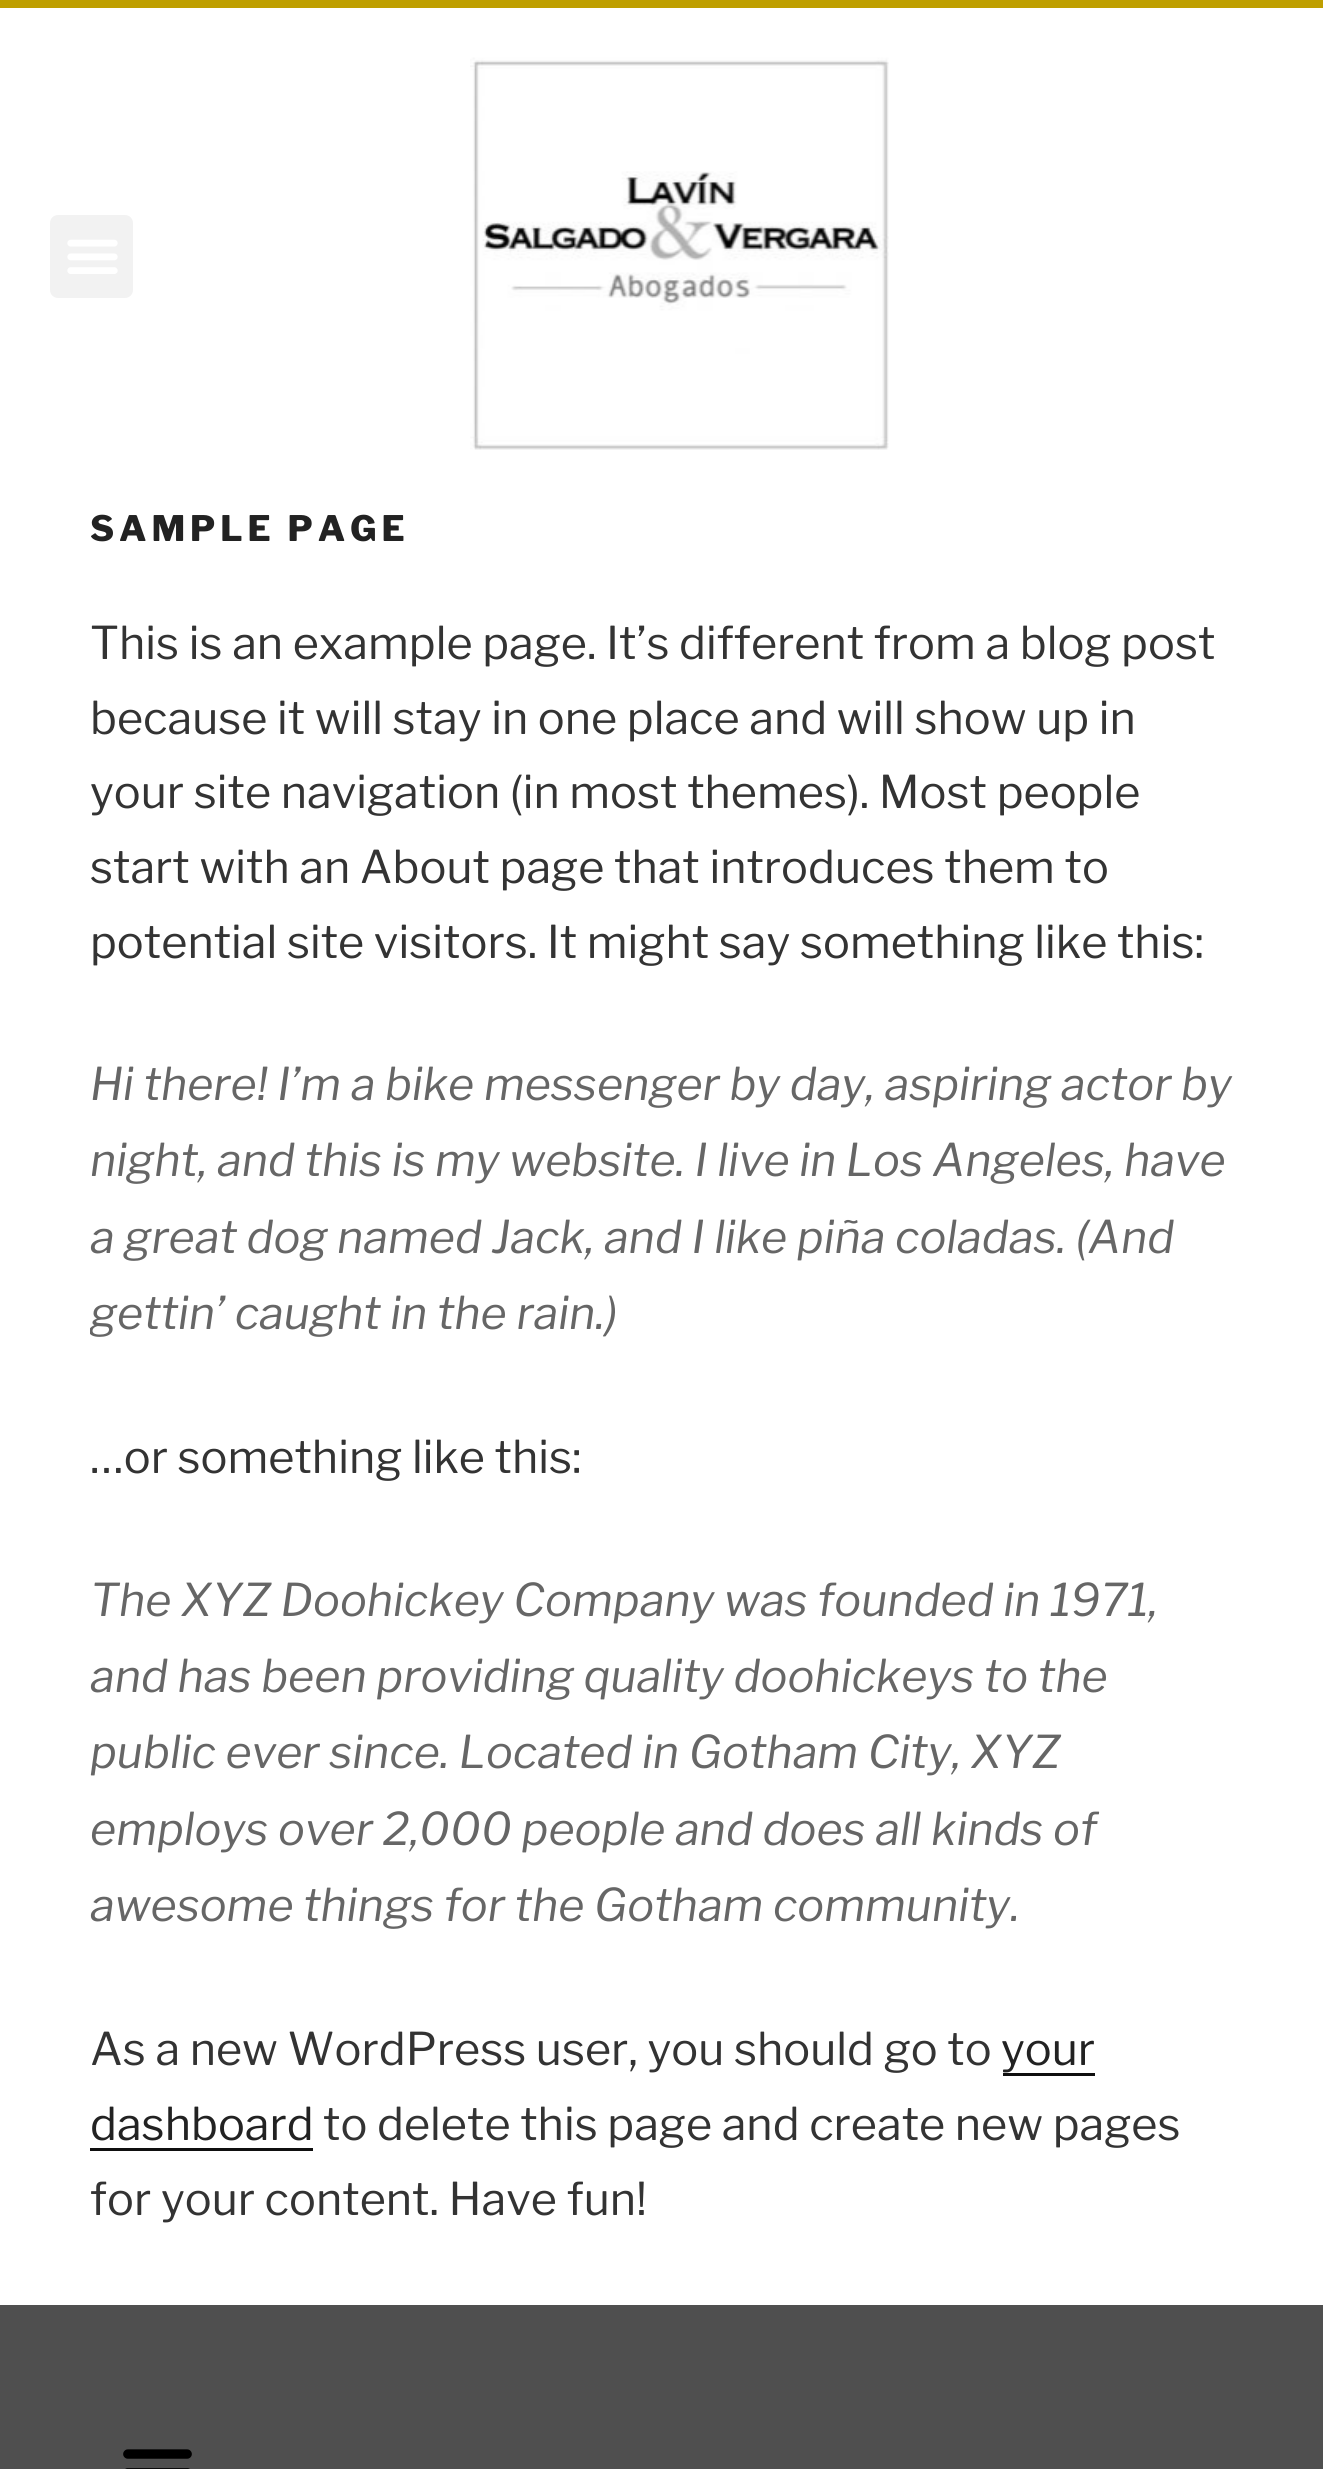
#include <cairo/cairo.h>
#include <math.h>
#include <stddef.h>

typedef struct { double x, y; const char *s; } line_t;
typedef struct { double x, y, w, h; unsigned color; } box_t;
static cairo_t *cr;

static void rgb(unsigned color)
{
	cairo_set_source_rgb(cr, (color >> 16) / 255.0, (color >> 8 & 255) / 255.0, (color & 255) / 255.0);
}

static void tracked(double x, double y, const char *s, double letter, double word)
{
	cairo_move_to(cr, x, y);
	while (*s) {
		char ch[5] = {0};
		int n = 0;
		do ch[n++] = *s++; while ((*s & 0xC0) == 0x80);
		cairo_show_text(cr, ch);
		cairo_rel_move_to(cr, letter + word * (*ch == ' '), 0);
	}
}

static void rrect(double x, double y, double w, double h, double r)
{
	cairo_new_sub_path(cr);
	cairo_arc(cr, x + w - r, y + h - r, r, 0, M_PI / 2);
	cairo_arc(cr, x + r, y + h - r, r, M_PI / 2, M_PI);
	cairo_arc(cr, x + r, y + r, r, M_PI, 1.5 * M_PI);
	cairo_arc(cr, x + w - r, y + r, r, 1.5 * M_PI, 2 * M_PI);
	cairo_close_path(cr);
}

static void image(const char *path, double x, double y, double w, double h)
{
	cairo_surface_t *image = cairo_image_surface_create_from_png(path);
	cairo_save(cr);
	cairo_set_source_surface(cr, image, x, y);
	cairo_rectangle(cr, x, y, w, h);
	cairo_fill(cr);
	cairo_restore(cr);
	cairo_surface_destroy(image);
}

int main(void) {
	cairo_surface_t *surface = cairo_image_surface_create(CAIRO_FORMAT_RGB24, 1323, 2469);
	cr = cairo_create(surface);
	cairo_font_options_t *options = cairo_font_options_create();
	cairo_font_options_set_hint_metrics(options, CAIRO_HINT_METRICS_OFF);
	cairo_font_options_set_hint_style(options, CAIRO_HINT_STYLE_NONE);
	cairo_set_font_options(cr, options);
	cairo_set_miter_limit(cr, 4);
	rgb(0xffffff);
	cairo_paint(cr);
	rgb(0xbf9f00);
	cairo_rectangle(cr, 0, 0, 1323, 8);
	cairo_fill(cr);
	rgb(0xf2f2f2);
	rrect(50, 215, 83, 83, 8);
	cairo_fill(cr);
	image("img/1.png", 67, 239, 51, 35);
	image("img/2.png", 470, 57, 419, 393);
	{
		static const box_t items[] = {
			{1003, 2073, 92, 3, 0x0f0f0f},
			{90, 2148, 223, 3, 0x0f0f0f},
			{0, 2305, 1323, 164, 0x4f4f4f},
		};
		for (size_t i = 0; i < sizeof items / sizeof *items; i++) {
			rgb(items[i].color);
			cairo_rectangle(cr, items[i].x, items[i].y, items[i].w, items[i].h);
			cairo_fill(cr);
		}
	}
	image("img/3.png", 123, 2449, 69, 20);
	cairo_select_font_face(cr, "Libre Franklin Thin", CAIRO_FONT_SLANT_NORMAL, CAIRO_FONT_WEIGHT_NORMAL);
	cairo_set_font_size(cr, 35);
	rgb(0x222222);
	tracked(90, 541, "SAMPLE PAGE", 4.9, 0);
	cairo_select_font_face(cr, "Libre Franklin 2 Thin", CAIRO_FONT_SLANT_NORMAL, CAIRO_FONT_WEIGHT_NORMAL);
	cairo_set_font_size(cr, 45);
	rgb(0x333333);
	{
		static const line_t items[] = {
			{90, 659, "This is an example page. It’s different from a blog post"},
			{90, 734, "because it will stay in one place and will show up in"},
			{90, 808, "your site navigation (in most themes). Most people"},
			{90, 883, "start with an About page that introduces them to"},
			{90, 958, "potential site visitors. It might say something like this:"},
		};
		for (size_t i = 0; i < sizeof items / sizeof *items; i++) {
			cairo_move_to(cr, items[i].x, items[i].y);
			cairo_show_text(cr, items[i].s);
		}
	}
	cairo_select_font_face(cr, "Libre Franklin Thin", CAIRO_FONT_SLANT_ITALIC, CAIRO_FONT_WEIGHT_NORMAL);
	rgb(0x666666);
	{
		static const line_t items[] = {
			{90, 1100, "Hi there! I’m a bike messenger by day, aspiring actor by"},
			{90, 1176, "night, and this is my website. I live in Los Angeles, have"},
			{90, 1253, "a great dog named Jack, and I like piña coladas. (And"},
		};
		for (size_t i = 0; i < sizeof items / sizeof *items; i++) {
			cairo_move_to(cr, items[i].x, items[i].y);
			cairo_show_text(cr, items[i].s);
		}
	}
	cairo_save(cr);
	cairo_rectangle(cr, 90, 1048, 1145, 372);
	cairo_clip(cr);
	cairo_move_to(cr, 90, 1329);
	cairo_show_text(cr, "gettin’ caught in the rain.)");
	cairo_restore(cr);
	cairo_select_font_face(cr, "Libre Franklin 2 Thin", CAIRO_FONT_SLANT_NORMAL, CAIRO_FONT_WEIGHT_NORMAL);
	rgb(0x333333);
	cairo_move_to(cr, 90, 1473);
	cairo_show_text(cr, "…or something like this:");
	cairo_select_font_face(cr, "Libre Franklin Thin", CAIRO_FONT_SLANT_ITALIC, CAIRO_FONT_WEIGHT_NORMAL);
	rgb(0x666666);
	{
		static const line_t items[] = {
			{90, 1616, "The XYZ Doohickey Company was founded in 1971,"},
			{90, 1692, "and has been providing quality doohickeys to the"},
			{90, 1768, "public ever since. Located in Gotham City, XYZ"},
			{90, 1845, "employs over 2,000 people and does all kinds of"},
			{90, 1921, "awesome things for the Gotham community."},
		};
		for (size_t i = 0; i < sizeof items / sizeof *items; i++) {
			cairo_move_to(cr, items[i].x, items[i].y);
			cairo_show_text(cr, items[i].s);
		}
	}
	cairo_select_font_face(cr, "Libre Franklin 2 Thin", CAIRO_FONT_SLANT_NORMAL, CAIRO_FONT_WEIGHT_NORMAL);
	rgb(0x333333);
	cairo_move_to(cr, 90, 2065);
	cairo_show_text(cr, "As a new WordPress user, you should go to");
	rgb(0x222222);
	cairo_move_to(cr, 1001, 2065);
	cairo_show_text(cr, "your");
	cairo_move_to(cr, 90, 2140);
	cairo_show_text(cr, "dashboard");
	rgb(0x333333);
	cairo_move_to(cr, 323, 2140);
	cairo_show_text(cr, "to delete this page and create new pages");
	cairo_move_to(cr, 90, 2215);
	cairo_show_text(cr, "for your content. Have fun!");
	cairo_surface_write_to_png(surface, "page.png");
	cairo_font_options_destroy(options);
	cairo_destroy(cr);
	cairo_surface_destroy(surface);
	return 0;
}
